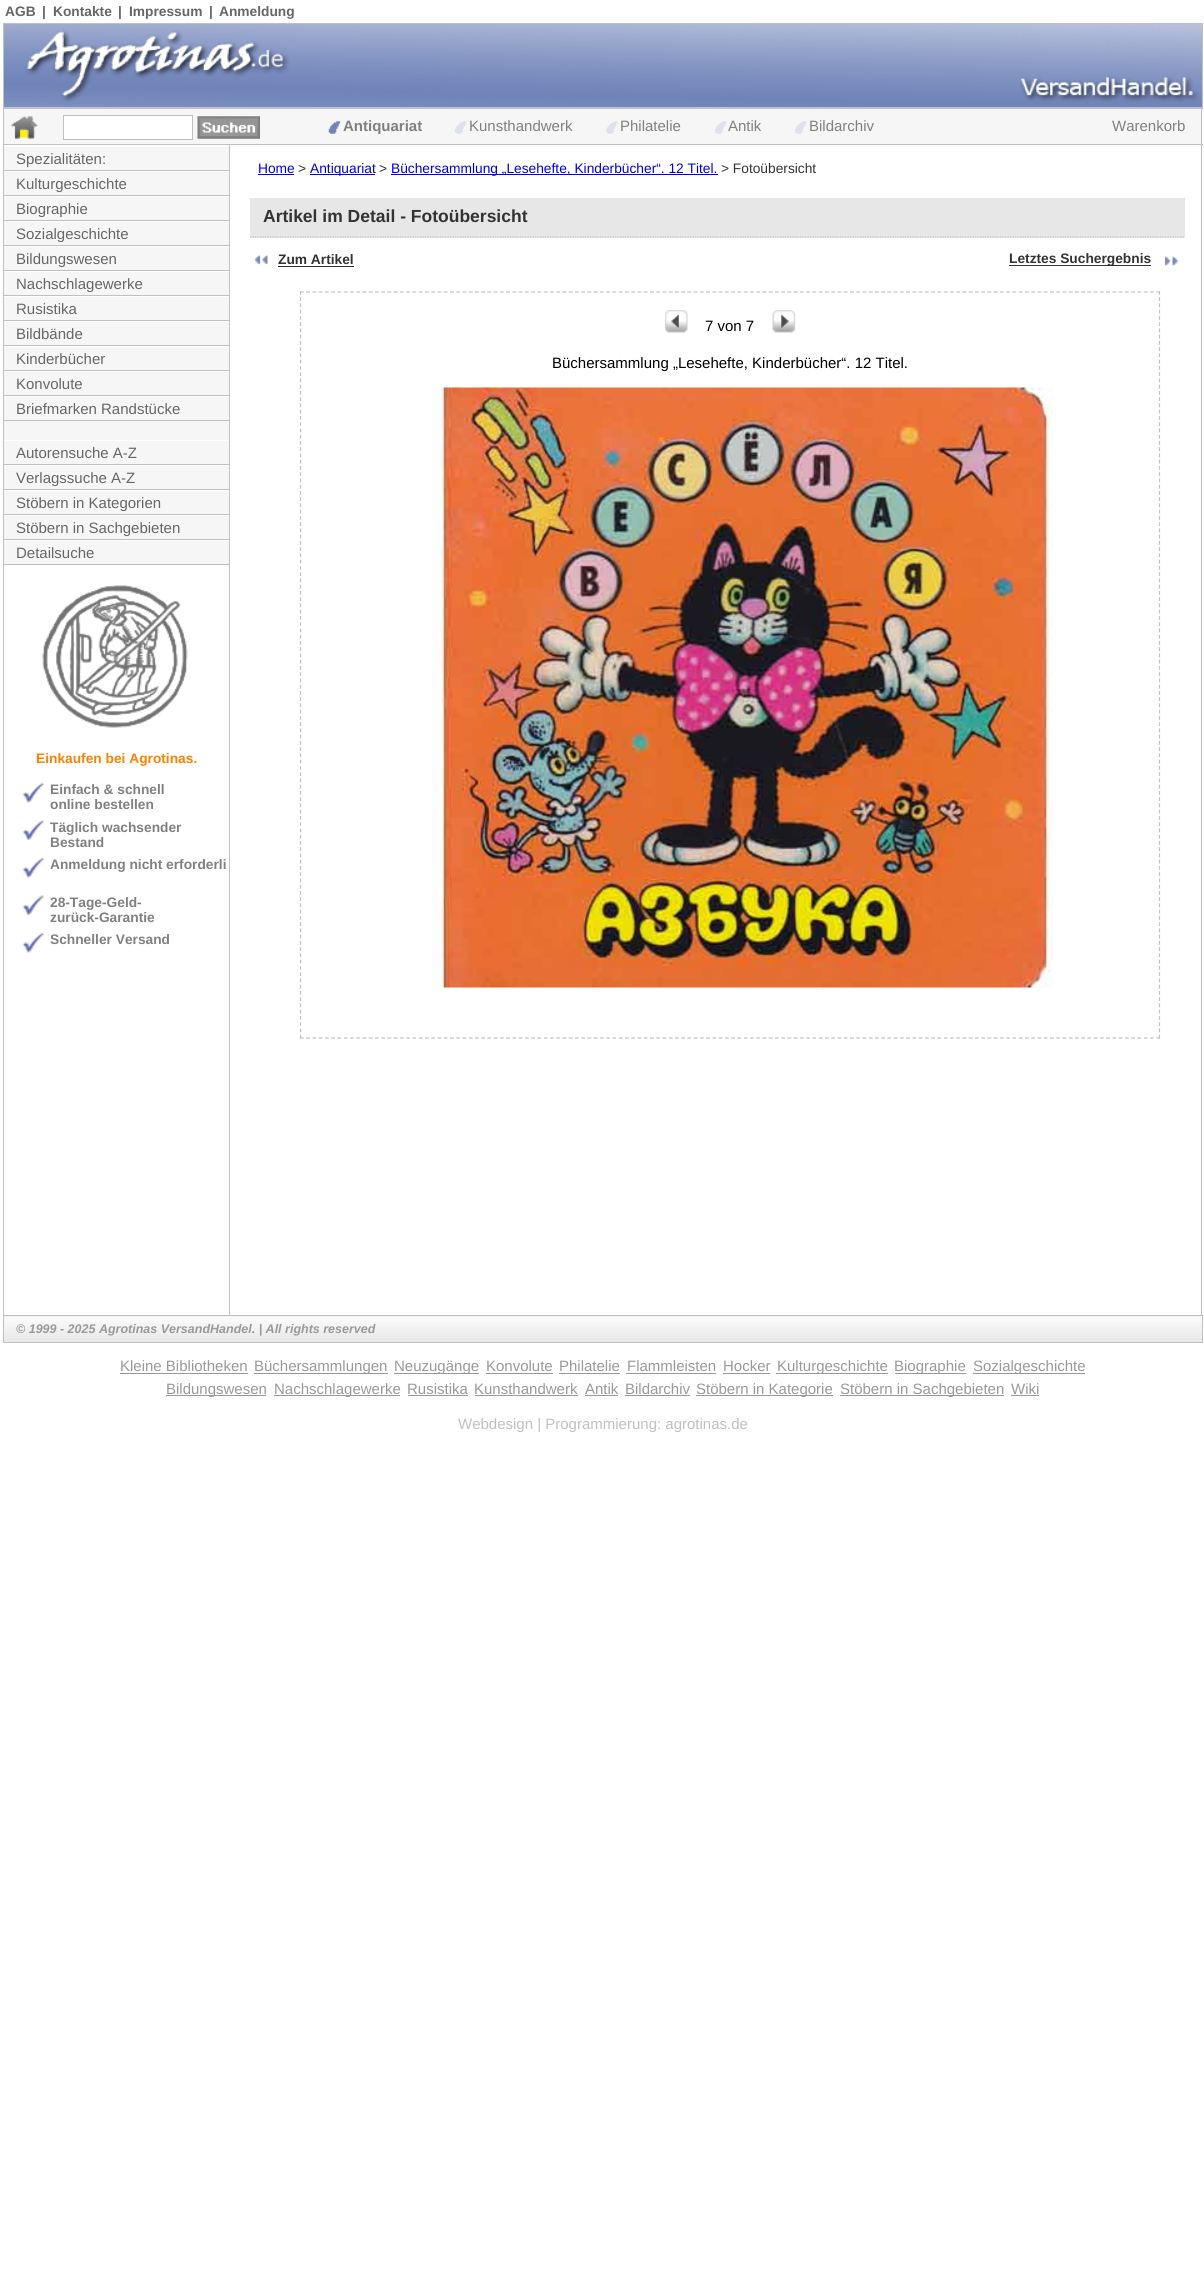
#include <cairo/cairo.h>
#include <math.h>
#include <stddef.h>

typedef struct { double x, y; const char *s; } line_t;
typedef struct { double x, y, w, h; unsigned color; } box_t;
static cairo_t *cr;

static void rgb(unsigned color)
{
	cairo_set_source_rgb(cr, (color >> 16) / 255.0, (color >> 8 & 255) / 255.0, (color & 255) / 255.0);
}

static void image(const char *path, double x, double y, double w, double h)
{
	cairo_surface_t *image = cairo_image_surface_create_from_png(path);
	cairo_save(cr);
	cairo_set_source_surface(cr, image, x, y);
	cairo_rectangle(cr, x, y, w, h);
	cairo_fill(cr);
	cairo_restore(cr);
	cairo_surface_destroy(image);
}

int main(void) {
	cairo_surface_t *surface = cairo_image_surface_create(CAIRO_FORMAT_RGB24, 1204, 2269);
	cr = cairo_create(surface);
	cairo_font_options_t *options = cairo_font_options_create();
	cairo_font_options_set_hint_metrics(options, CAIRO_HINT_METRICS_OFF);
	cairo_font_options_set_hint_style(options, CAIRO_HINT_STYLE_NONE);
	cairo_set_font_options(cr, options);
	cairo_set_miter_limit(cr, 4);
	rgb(0xffffff);
	cairo_paint(cr);
	image("img/1.png", 4, 24, 1198, 84);
	cairo_rectangle(cr, 3.5, 23.5, 1199, 85);
	rgb(0xc0c0c0);
	cairo_set_line_width(cr, 1);
	cairo_stroke(cr);
	{
		static const box_t items[] = {
			{4, 109, 1197, 35, 0xf6f6f6},
			{1201, 109, 1, 1206, 0xc0c0c0},
			{3, 144, 1200, 1, 0xc0c0c0},
			{3, 109, 1, 36, 0xc0c0c0},
		};
		for (size_t i = 0; i < sizeof items / sizeof *items; i++) {
			rgb(items[i].color);
			cairo_rectangle(cr, items[i].x, items[i].y, items[i].w, items[i].h);
			cairo_fill(cr);
		}
	}
	image("img/2.png", 11, 116, 27, 23);
	rgb(0xffffff);
	cairo_rectangle(cr, 63.5, 115.5, 129, 24);
	cairo_fill_preserve(cr);
	rgb(0xc0c0c0);
	cairo_stroke(cr);
	image("img/3.png", 197, 116, 63, 23);
	image("img/4.png", 328, 121, 13, 13);
	image("img/5.png", 455, 121, 12, 13);
	image("img/6.png", 606, 121, 12, 13);
	image("img/5.png", 715, 121, 12, 13);
	image("img/7.png", 795, 121, 12, 13);
	{
		static const box_t items[] = {
			{3, 145, 1, 1170, 0xc0c0c0},
			{4, 147, 225, 417, 0xf6f6f6},
			{229, 145, 1, 1170, 0xc0c0c0},
			{4, 170, 225, 1, 0xc0c0c0},
			{4, 171, 225, 1, 0xffffff},
			{4, 195, 225, 1, 0xc0c0c0},
			{4, 196, 225, 1, 0xffffff},
			{4, 220, 225, 1, 0xc0c0c0},
			{4, 221, 225, 1, 0xffffff},
			{4, 245, 225, 1, 0xc0c0c0},
			{4, 246, 225, 1, 0xffffff},
			{4, 270, 225, 1, 0xc0c0c0},
			{4, 271, 225, 1, 0xffffff},
			{4, 295, 225, 1, 0xc0c0c0},
			{4, 296, 225, 1, 0xffffff},
			{4, 320, 225, 1, 0xc0c0c0},
			{4, 321, 225, 1, 0xffffff},
			{4, 345, 225, 1, 0xc0c0c0},
			{4, 346, 225, 1, 0xffffff},
			{4, 370, 225, 1, 0xc0c0c0},
			{4, 371, 225, 1, 0xffffff},
			{4, 395, 225, 1, 0xc0c0c0},
			{4, 396, 225, 1, 0xffffff},
			{4, 420, 225, 1, 0xc0c0c0},
			{4, 440, 225, 1, 0xffffff},
			{4, 464, 225, 1, 0xc0c0c0},
			{4, 465, 225, 1, 0xffffff},
			{4, 489, 225, 1, 0xc0c0c0},
			{4, 490, 225, 1, 0xffffff},
			{4, 514, 225, 1, 0xc0c0c0},
			{4, 515, 225, 1, 0xffffff},
			{4, 539, 225, 1, 0xc0c0c0},
			{4, 540, 225, 1, 0xffffff},
			{4, 564, 225, 1, 0xc0c0c0},
		};
		for (size_t i = 0; i < sizeof items / sizeof *items; i++) {
			rgb(items[i].color);
			cairo_rectangle(cr, items[i].x, items[i].y, items[i].w, items[i].h);
			cairo_fill(cr);
		}
	}
	image("img/8.png", 42, 585, 146, 143);
	image("img/9.png", 22, 782, 22, 21);
	image("img/10.png", 22, 820, 22, 20);
	image("img/9.png", 22, 857, 22, 21);
	image("img/10.png", 22, 895, 22, 20);
	image("img/9.png", 22, 932, 22, 21);
	{
		static const box_t items[] = {
			{258, 174, 36, 1, 0x0000ee},
			{310, 174, 65, 1, 0x0000ee},
			{391, 174, 327, 1, 0x0000ee},
			{250, 198, 935, 40, 0xe7e7e7},
		};
		for (size_t i = 0; i < sizeof items / sizeof *items; i++) {
			rgb(items[i].color);
			cairo_rectangle(cr, items[i].x, items[i].y, items[i].w, items[i].h);
			cairo_fill(cr);
		}
	}
	cairo_new_path(cr);
	cairo_move_to(cr, 250, 237);
	cairo_line_to(cr, 1185, 237);
	rgb(0xc0c0c0);
	cairo_set_line_width(cr, 1.2);
	cairo_set_dash(cr, (double[]){1.25, 1.25}, 2, 0);
	cairo_stroke(cr);
	image("img/11.png", 254, 255, 14, 10);
	rgb(0x333333);
	cairo_rectangle(cr, 278, 266, 76, 1);
	cairo_fill(cr);
	cairo_rectangle(cr, 1009, 265, 142, 1);
	cairo_fill(cr);
	image("img/12.png", 1164, 256, 14, 11);
	cairo_new_path(cr);
	cairo_move_to(cr, 300, 292);
	cairo_line_to(cr, 1160, 292);
	rgb(0xc0c0c0);
	cairo_set_dash(cr, (double[]){3.75, 2.5}, 2, 0);
	cairo_stroke(cr);
	cairo_new_path(cr);
	cairo_move_to(cr, 1159.5, 291);
	cairo_line_to(cr, 1159.5, 1039);
	cairo_stroke(cr);
	cairo_new_path(cr);
	cairo_move_to(cr, 300, 1038);
	cairo_line_to(cr, 1160, 1038);
	cairo_stroke(cr);
	cairo_new_path(cr);
	cairo_move_to(cr, 300.5, 291);
	cairo_line_to(cr, 300.5, 1039);
	cairo_stroke(cr);
	image("img/13.png", 665, 310, 23, 23);
	image("img/14.png", 772, 310, 24, 23);
	image("img/15.png", 432, 387, 621, 601);
	image("img/16.png", 2, 1315, 1200, 28);
	cairo_rectangle(cr, 3.5, 1315.5, 1199, 27);
	cairo_set_line_width(cr, 1);
	cairo_set_dash(cr, NULL, 0, 0);
	cairo_stroke(cr);
	{
		static const box_t items[] = {
			{120, 1373, 128, 1, 0x999999},
			{254, 1373, 134, 1, 0x999999},
			{394, 1373, 85, 1, 0x999999},
			{486, 1373, 67, 1, 0x999999},
			{559, 1373, 61, 1, 0x999999},
			{626, 1373, 90, 1, 0x999999},
			{723, 1373, 47, 1, 0x999999},
			{776, 1373, 112, 1, 0x999999},
			{895, 1373, 71, 1, 0x999999},
			{973, 1373, 112, 1, 0x999999},
			{166, 1395, 100, 1, 0x999999},
			{274, 1395, 126, 1, 0x999999},
			{408, 1395, 60, 1, 0x999999},
			{475, 1395, 103, 1, 0x999999},
			{585, 1395, 33, 1, 0x999999},
			{625, 1395, 65, 1, 0x999999},
			{696, 1395, 137, 1, 0x999999},
			{840, 1395, 164, 1, 0x999999},
			{1011, 1395, 28, 1, 0x999999},
		};
		for (size_t i = 0; i < sizeof items / sizeof *items; i++) {
			rgb(items[i].color);
			cairo_rectangle(cr, items[i].x, items[i].y, items[i].w, items[i].h);
			cairo_fill(cr);
		}
	}
	cairo_select_font_face(cr, "Liberation Sans", CAIRO_FONT_SLANT_NORMAL, CAIRO_FONT_WEIGHT_BOLD);
	cairo_set_font_size(cr, 13.75);
	rgb(0x666666);
	{
		static const line_t items[] = {
			{5, 16, "AGB"},
			{42, 16, "|"},
			{53, 16, "Kontakte"},
			{118, 16, "|"},
			{129, 16, "Impressum"},
			{209, 16, "|"},
			{219, 16, "Anmeldung"},
		};
		for (size_t i = 0; i < sizeof items / sizeof *items; i++) {
			cairo_move_to(cr, items[i].x, items[i].y);
			cairo_show_text(cr, items[i].s);
		}
	}
	cairo_set_font_size(cr, 15);
	rgb(0x808080);
	cairo_move_to(cr, 343, 131);
	cairo_show_text(cr, "Antiquariat");
	cairo_select_font_face(cr, "Liberation Sans", CAIRO_FONT_SLANT_NORMAL, CAIRO_FONT_WEIGHT_NORMAL);
	{
		static const line_t items[] = {
			{469, 131, "Kunsthandwerk"},
			{620, 131, "Philatelie"},
			{728, 131, "Antik"},
			{809, 131, "Bildarchiv"},
			{1112, 131, "Warenkorb"},
		};
		for (size_t i = 0; i < sizeof items / sizeof *items; i++) {
			cairo_move_to(cr, items[i].x, items[i].y);
			cairo_show_text(cr, items[i].s);
		}
	}
	rgb(0x666666);
	{
		static const line_t items[] = {
			{16, 164, "Spezialitäten:"},
			{16, 189, "Kulturgeschichte"},
			{16, 214, "Biographie"},
			{16, 239, "Sozialgeschichte"},
			{16, 264, "Bildungswesen"},
			{16, 289, "Nachschlagewerke"},
			{16, 314, "Rusistika"},
			{16, 339, "Bildbände"},
			{16, 364, "Kinderbücher"},
			{16, 389, "Konvolute"},
			{16, 414, "Briefmarken Randstücke"},
			{16, 458, "Autorensuche A-Z"},
			{16, 483, "Verlagssuche A-Z"},
			{16, 508, "Stöbern in Kategorien"},
			{16, 533, "Stöbern in Sachgebieten"},
			{16, 558, "Detailsuche"},
		};
		for (size_t i = 0; i < sizeof items / sizeof *items; i++) {
			cairo_move_to(cr, items[i].x, items[i].y);
			cairo_show_text(cr, items[i].s);
		}
	}
	cairo_select_font_face(cr, "Liberation Sans", CAIRO_FONT_SLANT_NORMAL, CAIRO_FONT_WEIGHT_BOLD);
	cairo_set_font_size(cr, 13.75);
	rgb(0xff8000);
	cairo_move_to(cr, 36, 763);
	cairo_show_text(cr, "Einkaufen bei Agrotinas.");
	rgb(0x808080);
	{
		static const line_t items[] = {
			{50, 794, "Einfach & schnell"},
			{50, 809, "online bestellen"},
			{50, 832, "Täglich wachsender"},
			{50, 847, "Bestand"},
			{50, 869, "Anmeldung nicht erforderli"},
			{50, 907, "28-Tage-Geld-"},
			{50, 922, "zurück-Garantie"},
			{50, 944, "Schneller Versand"},
		};
		for (size_t i = 0; i < sizeof items / sizeof *items; i++) {
			cairo_move_to(cr, items[i].x, items[i].y);
			cairo_show_text(cr, items[i].s);
		}
	}
	cairo_select_font_face(cr, "Liberation Sans", CAIRO_FONT_SLANT_NORMAL, CAIRO_FONT_WEIGHT_NORMAL);
	rgb(0x0000ee);
	cairo_move_to(cr, 258, 173);
	cairo_show_text(cr, "Home");
	rgb(0x333333);
	cairo_move_to(cr, 298, 173);
	cairo_show_text(cr, ">");
	rgb(0x0000ee);
	cairo_move_to(cr, 310, 173);
	cairo_show_text(cr, "Antiquariat");
	rgb(0x333333);
	cairo_move_to(cr, 379, 173);
	cairo_show_text(cr, ">");
	rgb(0x0000ee);
	cairo_move_to(cr, 391, 173);
	cairo_show_text(cr, "Büchersammlung „Lesehefte, Kinderbücher“. 12 Titel.");
	rgb(0x333333);
	cairo_move_to(cr, 721, 173);
	cairo_show_text(cr, "> Fotoübersicht");
	cairo_select_font_face(cr, "Liberation Sans", CAIRO_FONT_SLANT_NORMAL, CAIRO_FONT_WEIGHT_BOLD);
	cairo_set_font_size(cr, 17.5);
	cairo_move_to(cr, 263, 222);
	cairo_show_text(cr, "Artikel im Detail - Fotoübersicht");
	cairo_set_font_size(cr, 13.75);
	cairo_move_to(cr, 278, 264);
	cairo_show_text(cr, "Zum Artikel");
	cairo_move_to(cr, 1009, 263);
	cairo_show_text(cr, "Letztes Suchergebnis");
	cairo_select_font_face(cr, "Liberation Sans", CAIRO_FONT_SLANT_NORMAL, CAIRO_FONT_WEIGHT_NORMAL);
	cairo_set_font_size(cr, 15);
	rgb(0x000000);
	cairo_move_to(cr, 705, 331);
	cairo_show_text(cr, "7 von 7");
	cairo_move_to(cr, 552, 368);
	cairo_show_text(cr, "Büchersammlung „Lesehefte, Kinderbücher“. 12 Titel.");
	cairo_select_font_face(cr, "Liberation Sans", CAIRO_FONT_SLANT_ITALIC, CAIRO_FONT_WEIGHT_BOLD);
	cairo_set_font_size(cr, 12.5);
	rgb(0x999999);
	cairo_move_to(cr, 16, 1333);
	cairo_show_text(cr, "© 1999 - 2025 Agrotinas VersandHandel. | All rights reserved");
	cairo_select_font_face(cr, "Liberation Sans", CAIRO_FONT_SLANT_NORMAL, CAIRO_FONT_WEIGHT_NORMAL);
	cairo_set_font_size(cr, 15);
	{
		static const line_t items[] = {
			{120, 1371, "Kleine Bibliotheken"},
			{254, 1371, "Büchersammlungen"},
			{394, 1371, "Neuzugänge"},
			{486, 1371, "Konvolute"},
			{559, 1371, "Philatelie"},
			{627, 1371, "Flammleisten"},
			{723, 1371, "Hocker"},
			{777, 1371, "Kulturgeschichte"},
			{894, 1371, "Biographie"},
			{973, 1371, "Sozialgeschichte"},
			{166, 1394, "Bildungswesen"},
			{274, 1394, "Nachschlagewerke"},
			{407, 1394, "Rusistika"},
			{474, 1394, "Kunsthandwerk"},
			{585, 1394, "Antik"},
			{625, 1394, "Bildarchiv"},
			{696, 1394, "Stöbern in Kategorie"},
			{840, 1394, "Stöbern in Sachgebieten"},
			{1011, 1394, "Wiki"},
		};
		for (size_t i = 0; i < sizeof items / sizeof *items; i++) {
			cairo_move_to(cr, items[i].x, items[i].y);
			cairo_show_text(cr, items[i].s);
		}
	}
	rgb(0xc0c0c0);
	cairo_move_to(cr, 458, 1429);
	cairo_show_text(cr, "Webdesign | Programmierung: agrotinas.de");
	cairo_surface_write_to_png(surface, "page.png");
	cairo_font_options_destroy(options);
	cairo_destroy(cr);
	cairo_surface_destroy(surface);
	return 0;
}
